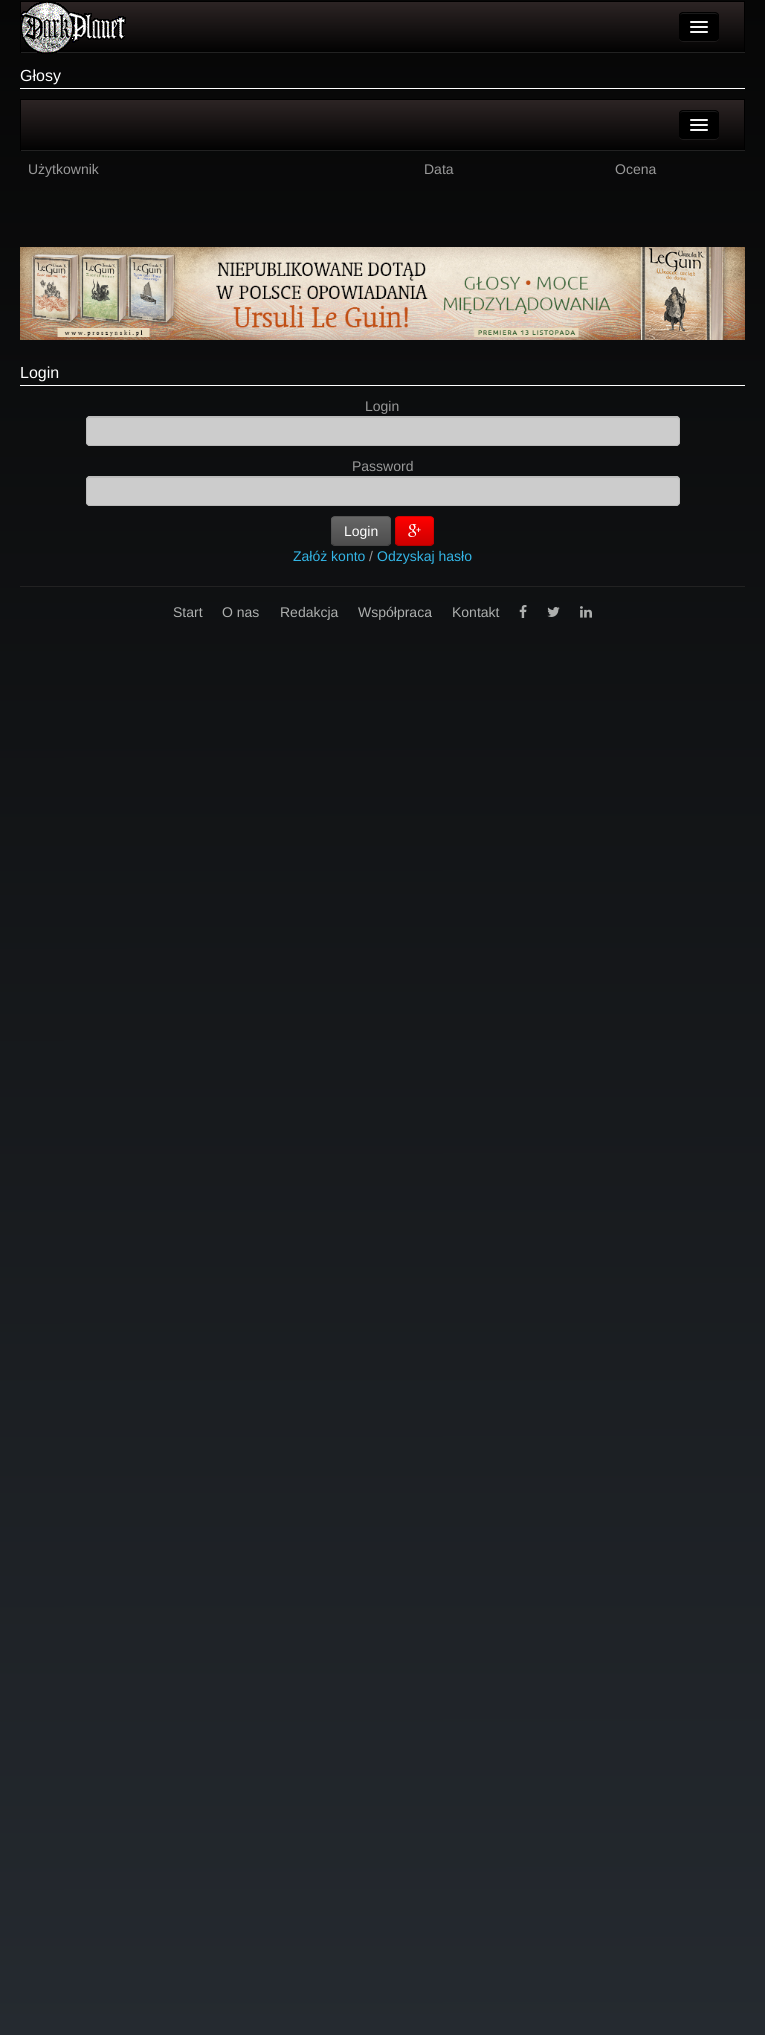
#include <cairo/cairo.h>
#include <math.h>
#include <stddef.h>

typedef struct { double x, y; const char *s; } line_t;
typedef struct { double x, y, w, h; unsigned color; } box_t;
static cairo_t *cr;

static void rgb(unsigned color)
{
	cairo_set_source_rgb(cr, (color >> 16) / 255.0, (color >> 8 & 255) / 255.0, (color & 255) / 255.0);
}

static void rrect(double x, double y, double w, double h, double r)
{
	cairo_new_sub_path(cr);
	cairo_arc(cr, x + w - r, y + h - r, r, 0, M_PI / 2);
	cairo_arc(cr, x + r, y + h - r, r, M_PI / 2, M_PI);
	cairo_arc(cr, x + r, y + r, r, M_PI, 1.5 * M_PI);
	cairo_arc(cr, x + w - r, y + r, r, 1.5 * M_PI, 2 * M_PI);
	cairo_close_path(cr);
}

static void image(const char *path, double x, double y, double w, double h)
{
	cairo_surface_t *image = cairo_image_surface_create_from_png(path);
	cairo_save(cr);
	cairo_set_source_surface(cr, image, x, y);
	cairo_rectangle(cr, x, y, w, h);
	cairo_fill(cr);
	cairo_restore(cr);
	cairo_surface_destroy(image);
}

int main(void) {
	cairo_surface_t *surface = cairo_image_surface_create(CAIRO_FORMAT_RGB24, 765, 2035);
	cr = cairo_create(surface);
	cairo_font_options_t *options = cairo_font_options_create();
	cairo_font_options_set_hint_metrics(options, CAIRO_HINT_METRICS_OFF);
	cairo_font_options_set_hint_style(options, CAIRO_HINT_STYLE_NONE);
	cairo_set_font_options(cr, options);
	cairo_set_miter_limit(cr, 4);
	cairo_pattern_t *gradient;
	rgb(0xffffff);
	cairo_paint(cr);
	gradient = cairo_pattern_create_linear(382, 0, 383, 2035);
	cairo_pattern_add_color_stop_rgba(gradient, 0, 0.024, 0.024, 0.024, 1);
	cairo_pattern_add_color_stop_rgba(gradient, 1, 0.145, 0.165, 0.188, 1);
	cairo_set_source(cr, gradient);
	cairo_pattern_destroy(gradient);
	cairo_rectangle(cr, 0, 0, 765, 2035);
	cairo_fill(cr);
	gradient = cairo_pattern_create_linear(383, 2, 383, 52);
	cairo_pattern_add_color_stop_rgba(gradient, 0, 0.173, 0.141, 0.141, 1);
	cairo_pattern_add_color_stop_rgba(gradient, 1, 0.008, 0.008, 0.008, 1);
	cairo_set_source(cr, gradient);
	cairo_pattern_destroy(gradient);
	cairo_rectangle(cr, 21, 2, 723, 50);
	cairo_fill(cr);
	{
		static const box_t items[] = {
			{20, 1, 725, 1, 0x000000},
			{744, 1, 1, 52, 0x000000},
			{20, 52, 725, 1, 0x222222},
			{20, 1, 1, 52, 0x000000},
		};
		for (size_t i = 0; i < sizeof items / sizeof *items; i++) {
			rgb(items[i].color);
			cairo_rectangle(cr, items[i].x, items[i].y, items[i].w, items[i].h);
			cairo_fill(cr);
		}
	}
	rgb(0x1d1b1b);
	cairo_new_path(cr);
	cairo_move_to(cr, 679, 37);
	cairo_curve_to(cr, 679, 43, 684, 42, 688, 42);
	cairo_line_to(cr, 710, 42);
	cairo_curve_to(cr, 714, 42, 719, 43, 719, 37);
	cairo_curve_to(cr, 719, 39, 717, 41, 715, 41);
	cairo_line_to(cr, 683, 41);
	cairo_curve_to(cr, 681, 41, 679, 39, 679, 37);
	cairo_close_path(cr);
	cairo_fill(cr);
	rgb(0x000000);
	rrect(679, 12, 40, 29, 4);
	cairo_fill(cr);
	cairo_save(cr);
	rrect(679, 12, 40, 29, 4);
	cairo_clip(cr);
	cairo_rectangle(cr, 679, 13, 40, 27);
	cairo_fill(cr);
	cairo_restore(cr);
	rgb(0x1a1a1a);
	cairo_new_path(cr);
	cairo_move_to(cr, 683, 14);
	cairo_line_to(cr, 715, 14);
	cairo_curve_to(cr, 717, 14, 718, 15, 718, 17);
	cairo_curve_to(cr, 718, 12, 714, 13, 709.5, 13);
	cairo_line_to(cr, 688.5, 13);
	cairo_curve_to(cr, 684, 13, 680, 12, 680, 17);
	cairo_curve_to(cr, 680, 15, 681, 14, 683, 14);
	cairo_close_path(cr);
	cairo_fill(cr);
	rgb(0xf5f5f5);
	rrect(690, 21, 18, 2, 1);
	cairo_fill(cr);
	rrect(690, 26, 18, 2, 1);
	cairo_fill(cr);
	rrect(690, 31, 18, 2, 1);
	cairo_fill(cr);
	image("img/1.png", 21, 2, 105, 52);
	rgb(0xffffff);
	cairo_rectangle(cr, 20, 88, 725, 1);
	cairo_fill(cr);
	gradient = cairo_pattern_create_linear(383, 100, 383, 150);
	cairo_pattern_add_color_stop_rgba(gradient, 0, 0.173, 0.141, 0.141, 1);
	cairo_pattern_add_color_stop_rgba(gradient, 1, 0.008, 0.008, 0.008, 1);
	cairo_set_source(cr, gradient);
	cairo_pattern_destroy(gradient);
	cairo_rectangle(cr, 21, 100, 723, 50);
	cairo_fill(cr);
	{
		static const box_t items[] = {
			{20, 99, 725, 1, 0x000000},
			{744, 99, 1, 52, 0x000000},
			{20, 150, 725, 1, 0x222222},
			{20, 99, 1, 52, 0x000000},
		};
		for (size_t i = 0; i < sizeof items / sizeof *items; i++) {
			rgb(items[i].color);
			cairo_rectangle(cr, items[i].x, items[i].y, items[i].w, items[i].h);
			cairo_fill(cr);
		}
	}
	rgb(0x1d1b1b);
	cairo_new_path(cr);
	cairo_move_to(cr, 679, 135);
	cairo_curve_to(cr, 679, 141, 684, 140, 688, 140);
	cairo_line_to(cr, 710, 140);
	cairo_curve_to(cr, 714, 140, 719, 141, 719, 135);
	cairo_curve_to(cr, 719, 137, 717, 139, 715, 139);
	cairo_line_to(cr, 683, 139);
	cairo_curve_to(cr, 681, 139, 679, 137, 679, 135);
	cairo_close_path(cr);
	cairo_fill(cr);
	rgb(0x000000);
	rrect(679, 110, 40, 29, 4);
	cairo_fill(cr);
	cairo_save(cr);
	rrect(679, 110, 40, 29, 4);
	cairo_clip(cr);
	cairo_rectangle(cr, 679, 111, 40, 27);
	cairo_fill(cr);
	cairo_restore(cr);
	rgb(0x1a1a1a);
	cairo_new_path(cr);
	cairo_move_to(cr, 683, 112);
	cairo_line_to(cr, 715, 112);
	cairo_curve_to(cr, 717, 112, 718, 113, 718, 115);
	cairo_curve_to(cr, 718, 110, 714, 111, 709.5, 111);
	cairo_line_to(cr, 688.5, 111);
	cairo_curve_to(cr, 684, 111, 680, 110, 680, 115);
	cairo_curve_to(cr, 680, 113, 681, 112, 683, 112);
	cairo_close_path(cr);
	cairo_fill(cr);
	rgb(0xf5f5f5);
	rrect(690, 119, 18, 2, 1);
	cairo_fill(cr);
	rrect(690, 124, 18, 2, 1);
	cairo_fill(cr);
	rrect(690, 129, 18, 2, 1);
	cairo_fill(cr);
	image("img/2.png", 20, 247, 725, 93);
	rgb(0xffffff);
	cairo_rectangle(cr, 20, 385, 725, 1);
	cairo_fill(cr);
	rgb(0xcccccc);
	rrect(86, 416, 594, 30, 4);
	cairo_fill(cr);
	rgb(0xbdbdbd);
	cairo_new_path(cr);
	cairo_move_to(cr, 90, 418);
	cairo_line_to(cr, 676, 418);
	cairo_curve_to(cr, 678, 418, 679, 419, 679, 421);
	cairo_line_to(cr, 679, 420);
	cairo_curve_to(cr, 679, 418, 678, 417, 676, 417);
	cairo_line_to(cr, 90, 417);
	cairo_curve_to(cr, 88, 417, 87, 418, 87, 420);
	cairo_line_to(cr, 87, 421);
	cairo_curve_to(cr, 87, 419, 88, 418, 90, 418);
	cairo_close_path(cr);
	cairo_fill(cr);
	rrect(86.5, 416.5, 593, 29, 3.5);
	rgb(0xbbbbbb);
	cairo_set_line_width(cr, 1);
	cairo_stroke(cr);
	rgb(0xcccccc);
	rrect(86, 476, 594, 30, 4);
	cairo_fill(cr);
	rgb(0xbdbdbd);
	cairo_new_path(cr);
	cairo_move_to(cr, 90, 478);
	cairo_line_to(cr, 676, 478);
	cairo_curve_to(cr, 678, 478, 679, 479, 679, 481);
	cairo_line_to(cr, 679, 480);
	cairo_curve_to(cr, 679, 478, 678, 477, 676, 477);
	cairo_line_to(cr, 90, 477);
	cairo_curve_to(cr, 88, 477, 87, 478, 87, 480);
	cairo_line_to(cr, 87, 481);
	cairo_curve_to(cr, 87, 479, 88, 478, 90, 478);
	cairo_close_path(cr);
	cairo_fill(cr);
	rrect(86.5, 476.5, 593, 29, 3.5);
	rgb(0xbbbbbb);
	cairo_stroke(cr);
	rgb(0x5c5c5c);
	rrect(331, 516, 60, 30, 4);
	cairo_fill(cr);
	cairo_save(cr);
	rrect(331, 516, 60, 30, 4);
	cairo_clip(cr);
	gradient = cairo_pattern_create_linear(361, 517, 361, 545);
	cairo_pattern_add_color_stop_rgba(gradient, 0, 0.4, 0.4, 0.4, 1);
	cairo_pattern_add_color_stop_rgba(gradient, 1, 0.302, 0.302, 0.302, 1);
	cairo_set_source(cr, gradient);
	cairo_pattern_destroy(gradient);
	cairo_rectangle(cr, 331, 517, 60, 28);
	cairo_fill(cr);
	cairo_restore(cr);
	cairo_new_path(cr);
	cairo_move_to(cr, 389.5, 544.5);
	cairo_line_to(cr, 387.5, 545.5);
	cairo_line_to(cr, 334.5, 545.5);
	cairo_line_to(cr, 332.5, 544.5);
	cairo_set_source_rgba(cr, 0, 0, 0, 0.25);
	cairo_stroke(cr);
	cairo_new_path(cr);
	cairo_move_to(cr, 332.5, 544.5);
	cairo_curve_to(cr, 330.5, 542.5, 331.5, 534, 331.5, 531);
	cairo_curve_to(cr, 331.5, 516, 329, 516.5, 343.5, 516.5);
	cairo_line_to(cr, 378.5, 516.5);
	cairo_curve_to(cr, 393, 516.5, 390.5, 516, 390.5, 531);
	cairo_curve_to(cr, 390.5, 534, 391.5, 542.5, 389.5, 544.5);
	cairo_set_source_rgba(cr, 0, 0, 0, 0.1);
	cairo_stroke(cr);
	rgb(0xeb0000);
	rrect(395, 516, 39, 30, 4);
	cairo_fill(cr);
	cairo_save(cr);
	rrect(395, 516, 39, 30, 4);
	cairo_clip(cr);
	gradient = cairo_pattern_create_linear(415, 517, 415, 545);
	cairo_pattern_add_color_stop_rgba(gradient, 0, 1, 0, 0, 1);
	cairo_pattern_add_color_stop_rgba(gradient, 1, 0.8, 0, 0, 1);
	cairo_set_source(cr, gradient);
	cairo_pattern_destroy(gradient);
	cairo_rectangle(cr, 395, 517, 39, 28);
	cairo_fill(cr);
	cairo_restore(cr);
	cairo_new_path(cr);
	cairo_move_to(cr, 432.5, 544.5);
	cairo_curve_to(cr, 432, 545, 431, 545.5, 430, 545.5);
	cairo_line_to(cr, 399, 545.5);
	cairo_curve_to(cr, 398, 545.5, 397, 545, 396.5, 544.5);
	cairo_set_source_rgba(cr, 0, 0, 0, 0.25);
	cairo_stroke(cr);
	cairo_new_path(cr);
	cairo_move_to(cr, 396.5, 544.5);
	cairo_curve_to(cr, 396, 544, 395.5, 543, 395.5, 542);
	cairo_line_to(cr, 395.5, 520);
	cairo_curve_to(cr, 395.5, 519, 396, 518, 396.5, 517.5);
	cairo_curve_to(cr, 397, 517, 398, 516.5, 399, 516.5);
	cairo_line_to(cr, 430, 516.5);
	cairo_curve_to(cr, 431, 516.5, 432, 517, 432.5, 517.5);
	cairo_curve_to(cr, 433, 518, 433.5, 519, 433.5, 520);
	cairo_line_to(cr, 433.5, 542);
	cairo_curve_to(cr, 433.5, 543, 433, 544, 432.5, 544.5);
	cairo_set_source_rgba(cr, 0, 0, 0, 0.1);
	cairo_stroke(cr);
	image("img/3.png", 408, 524, 13, 13);
	rgb(0x222222);
	cairo_rectangle(cr, 20, 586, 725, 1);
	cairo_fill(cr);
	image("img/4.png", 519, 605, 8, 13);
	image("img/5.png", 547, 607, 13, 10);
	image("img/6.png", 580, 606, 12, 12);
	cairo_select_font_face(cr, "Liberation Sans", CAIRO_FONT_SLANT_NORMAL, CAIRO_FONT_WEIGHT_NORMAL);
	cairo_set_font_size(cr, 16);
	rgb(0xffffff);
	cairo_move_to(cr, 20, 81);
	cairo_show_text(cr, "Głosy");
	cairo_set_font_size(cr, 14);
	rgb(0x999999);
	{
		static const line_t items[] = {
			{28, 174, "Użytkownik"},
			{424, 174, "Data"},
			{615, 174, "Ocena"},
		};
		for (size_t i = 0; i < sizeof items / sizeof *items; i++) {
			cairo_move_to(cr, items[i].x, items[i].y);
			cairo_show_text(cr, items[i].s);
		}
	}
	cairo_set_font_size(cr, 16);
	rgb(0xffffff);
	cairo_move_to(cr, 20, 378);
	cairo_show_text(cr, "Login");
	cairo_set_font_size(cr, 14);
	rgb(0x999999);
	cairo_move_to(cr, 365, 411);
	cairo_show_text(cr, "Login");
	cairo_move_to(cr, 352, 471);
	cairo_show_text(cr, "Password");
	rgb(0xffffff);
	cairo_move_to(cr, 344, 536);
	cairo_show_text(cr, "Login");
	rgb(0x33b5e5);
	cairo_move_to(cr, 293, 561);
	cairo_show_text(cr, "Załóż konto");
	rgb(0x999999);
	cairo_move_to(cr, 369, 561);
	cairo_show_text(cr, "/");
	rgb(0x33b5e5);
	cairo_move_to(cr, 377, 561);
	cairo_show_text(cr, "Odzyskaj hasło");
	rgb(0xadafae);
	{
		static const line_t items[] = {
			{173, 617, "Start"},
			{222, 617, "O nas"},
			{280, 617, "Redakcja"},
			{358, 617, "Współpraca"},
			{452, 617, "Kontakt"},
		};
		for (size_t i = 0; i < sizeof items / sizeof *items; i++) {
			cairo_move_to(cr, items[i].x, items[i].y);
			cairo_show_text(cr, items[i].s);
		}
	}
	cairo_surface_write_to_png(surface, "page.png");
	cairo_font_options_destroy(options);
	cairo_destroy(cr);
	cairo_surface_destroy(surface);
	return 0;
}
